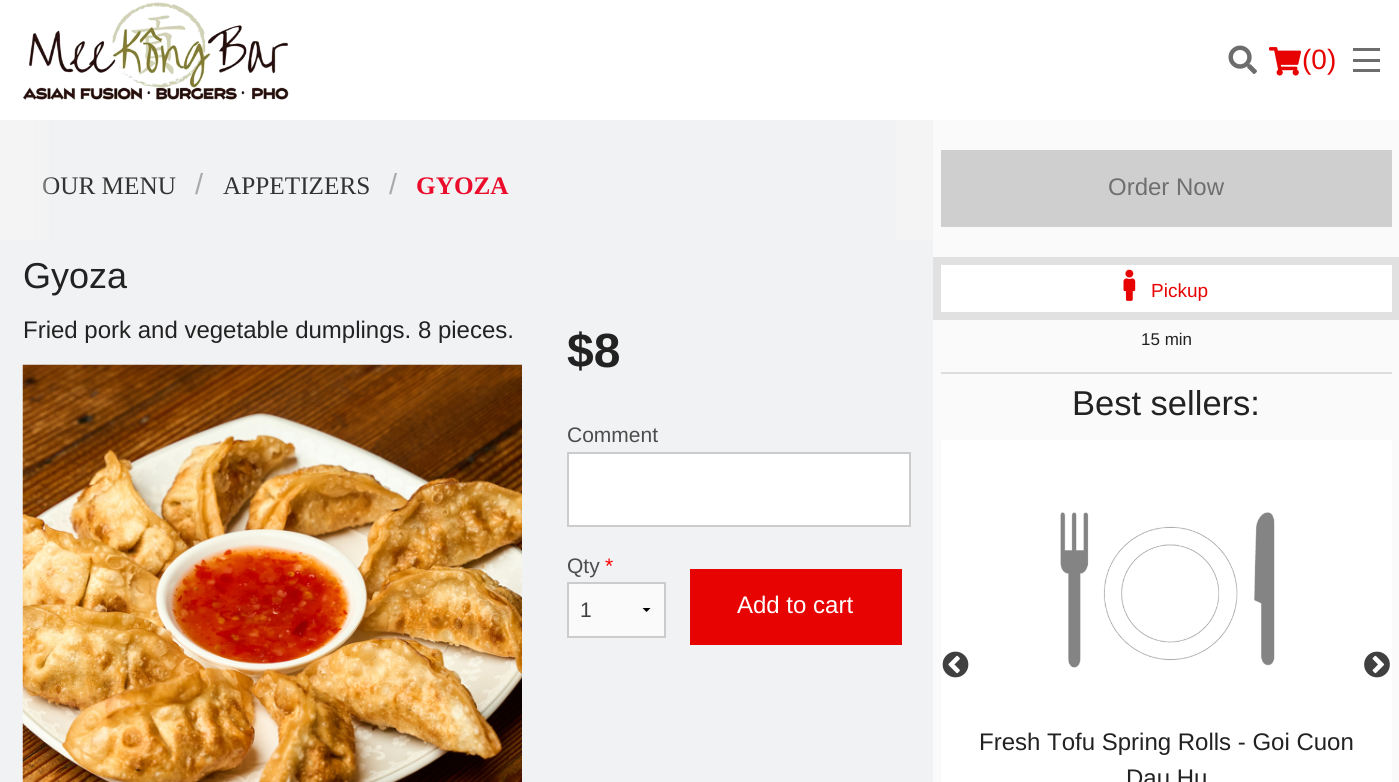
#include <cairo/cairo.h>
#include <math.h>
#include <stddef.h>

typedef struct { double x, y, w, h; unsigned color; } box_t;
static cairo_t *cr;

static void rgb(unsigned color)
{
	cairo_set_source_rgb(cr, (color >> 16) / 255.0, (color >> 8 & 255) / 255.0, (color & 255) / 255.0);
}

static void image(const char *path, double x, double y, double w, double h)
{
	cairo_surface_t *image = cairo_image_surface_create_from_png(path);
	cairo_save(cr);
	cairo_set_source_surface(cr, image, x, y);
	cairo_rectangle(cr, x, y, w, h);
	cairo_fill(cr);
	cairo_restore(cr);
	cairo_surface_destroy(image);
}

int main(void) {
	cairo_surface_t *surface = cairo_image_surface_create(CAIRO_FORMAT_RGB24, 1399, 782);
	cr = cairo_create(surface);
	cairo_font_options_t *options = cairo_font_options_create();
	cairo_font_options_set_hint_metrics(options, CAIRO_HINT_METRICS_OFF);
	cairo_font_options_set_hint_style(options, CAIRO_HINT_STYLE_NONE);
	cairo_set_font_options(cr, options);
	cairo_set_miter_limit(cr, 4);
	cairo_pattern_t *gradient;
	rgb(0xf1f2f3);
	cairo_paint(cr);
	rgb(0xffffff);
	cairo_rectangle(cr, 0, 0, 1399, 120);
	cairo_fill(cr);
	image("img/1.png", 23, 2, 266, 98);
	image("img/2.png", 1228, 45, 29, 29);
	image("img/3.png", 1269, 47, 32, 29);
	{
		static const box_t items[] = {
			{1353, 69, 27, 3, 0x6d6d6d},
			{1353, 59, 27, 3, 0x6d6d6d},
			{1353, 48, 27, 3, 0x6d6d6d},
		};
		for (size_t i = 0; i < sizeof items / sizeof *items; i++) {
			rgb(items[i].color);
			cairo_rectangle(cr, items[i].x, items[i].y, items[i].w, items[i].h);
			cairo_fill(cr);
		}
	}
	gradient = cairo_pattern_create_linear(881, 180, 933, 180);
	cairo_pattern_add_color_stop_rgba(gradient, 0, 0.945, 0.949, 0.953, 1);
	cairo_pattern_add_color_stop_rgba(gradient, 0.43, 0.961, 0.957, 0.961, 1);
	cairo_pattern_add_color_stop_rgba(gradient, 1, 0.961, 0.957, 0.961, 1);
	cairo_set_source(cr, gradient);
	cairo_pattern_destroy(gradient);
	cairo_rectangle(cr, 895, 120, 38, 120);
	cairo_fill(cr);
	image("img/4.png", 22, 364, 500, 418);
	rgb(0xffffff);
	cairo_rectangle(cr, 568, 453, 342, 73);
	cairo_fill_preserve(cr);
	rgb(0xcccccc);
	cairo_stroke(cr);
	rgb(0xfafafa);
	cairo_rectangle(cr, 569, 584, 95, 52);
	cairo_fill(cr);
	cairo_save(cr);
	cairo_rectangle(cr, 629, 608, 36, 5);
	cairo_clip(cr);
	rgb(0x000000);
	cairo_new_path(cr);
	cairo_move_to(cr, 651, 607.5);
	cairo_line_to(cr, 646.5, 612);
	cairo_line_to(cr, 642, 607.5);
	cairo_close_path(cr);
	cairo_fill(cr);
	cairo_restore(cr);
	cairo_rectangle(cr, 568, 583, 97, 54);
	rgb(0xcccccc);
	cairo_stroke(cr);
	{
		static const box_t items[] = {
			{690, 569, 212, 76, 0xe60301},
			{933, 120, 466, 662, 0xfafafa},
			{941, 150, 451, 77, 0xcfcfcf},
			{933, 257, 466, 63, 0xe1e1e1},
			{941, 265, 451, 47, 0xffffff},
		};
		for (size_t i = 0; i < sizeof items / sizeof *items; i++) {
			rgb(items[i].color);
			cairo_rectangle(cr, items[i].x, items[i].y, items[i].w, items[i].h);
			cairo_fill(cr);
		}
	}
	image("img/5.png", 1123, 269, 13, 32);
	rgb(0xdddddd);
	cairo_rectangle(cr, 941, 372, 451, 2);
	cairo_fill(cr);
	rgb(0xffffff);
	cairo_rectangle(cr, 941, 440, 451, 342);
	cairo_fill(cr);
	image("img/6.png", 942, 651, 27, 27);
	image("img/7.png", 1364, 651, 26, 27);
	image("img/8.png", 1060, 512, 215, 156);
	cairo_select_font_face(cr, "Liberation Sans", CAIRO_FONT_SLANT_NORMAL, CAIRO_FONT_WEIGHT_NORMAL);
	cairo_set_font_size(cr, 28);
	rgb(0xe60301);
	cairo_move_to(cr, 1302, 69);
	cairo_show_text(cr, "(0)");
	cairo_select_font_face(cr, "Liberation Serif", CAIRO_FONT_SLANT_NORMAL, CAIRO_FONT_WEIGHT_NORMAL);
	cairo_set_font_size(cr, 25.25);
	rgb(0x333333);
	cairo_move_to(cr, 42, 194);
	cairo_show_text(cr, "OUR MENU");
	gradient = cairo_pattern_create_linear(53, 180, 0, 180);
	cairo_pattern_add_color_stop_rgba(gradient, 0, 0.961, 0.957, 0.961, 0);
	cairo_pattern_add_color_stop_rgba(gradient, 0.43, 0.961, 0.957, 0.961, 1);
	cairo_pattern_add_color_stop_rgba(gradient, 1, 0.961, 0.957, 0.961, 1);
	cairo_set_source(cr, gradient);
	cairo_pattern_destroy(gradient);
	cairo_rectangle(cr, 0, 120, 53, 120);
	cairo_fill(cr);
	cairo_select_font_face(cr, "Liberation Sans", CAIRO_FONT_SLANT_NORMAL, CAIRO_FONT_WEIGHT_NORMAL);
	cairo_set_font_size(cr, 29);
	rgb(0xaaaaaa);
	cairo_move_to(cr, 195, 194);
	cairo_show_text(cr, "/");
	cairo_select_font_face(cr, "Liberation Serif", CAIRO_FONT_SLANT_NORMAL, CAIRO_FONT_WEIGHT_NORMAL);
	cairo_set_font_size(cr, 25.25);
	rgb(0x333333);
	cairo_move_to(cr, 223, 194);
	cairo_show_text(cr, "APPETIZERS");
	cairo_select_font_face(cr, "Liberation Sans", CAIRO_FONT_SLANT_NORMAL, CAIRO_FONT_WEIGHT_NORMAL);
	cairo_set_font_size(cr, 29);
	rgb(0xaaaaaa);
	cairo_move_to(cr, 389, 194);
	cairo_show_text(cr, "/");
	cairo_select_font_face(cr, "Liberation Serif", CAIRO_FONT_SLANT_NORMAL, CAIRO_FONT_WEIGHT_BOLD);
	cairo_set_font_size(cr, 25.25);
	rgb(0xeb0c2b);
	cairo_move_to(cr, 416, 194);
	cairo_show_text(cr, "GYOZA");
	cairo_select_font_face(cr, "Liberation Sans", CAIRO_FONT_SLANT_NORMAL, CAIRO_FONT_WEIGHT_NORMAL);
	cairo_set_font_size(cr, 36);
	rgb(0x222222);
	cairo_move_to(cr, 23, 288);
	cairo_show_text(cr, "Gyoza");
	cairo_set_font_size(cr, 24);
	cairo_move_to(cr, 23, 338);
	cairo_show_text(cr, "Fried pork and vegetable dumplings. 8 pieces.");
	cairo_select_font_face(cr, "Liberation Sans", CAIRO_FONT_SLANT_NORMAL, CAIRO_FONT_WEIGHT_BOLD);
	cairo_set_font_size(cr, 48);
	cairo_move_to(cr, 567, 367);
	cairo_show_text(cr, "$8");
	cairo_select_font_face(cr, "Liberation Sans", CAIRO_FONT_SLANT_NORMAL, CAIRO_FONT_WEIGHT_NORMAL);
	cairo_set_font_size(cr, 21);
	rgb(0x4d4d4d);
	cairo_move_to(cr, 567, 442);
	cairo_show_text(cr, "Comment");
	cairo_move_to(cr, 567, 573);
	cairo_show_text(cr, "Qty");
	rgb(0xff0000);
	cairo_move_to(cr, 605, 573);
	cairo_show_text(cr, "*");
	rgb(0x3f3f3f);
	cairo_move_to(cr, 580, 617);
	cairo_show_text(cr, "1");
	cairo_set_font_size(cr, 24);
	rgb(0xffffff);
	cairo_move_to(cr, 737, 613);
	cairo_show_text(cr, "Add to cart");
	rgb(0x6f6f6f);
	cairo_move_to(cr, 1108, 195);
	cairo_show_text(cr, "Order Now");
	cairo_set_font_size(cr, 19);
	rgb(0xe60301);
	cairo_move_to(cr, 1151, 297);
	cairo_show_text(cr, "Pickup");
	cairo_set_font_size(cr, 17);
	rgb(0x222222);
	cairo_move_to(cr, 1141, 345);
	cairo_show_text(cr, "15 min");
	cairo_set_font_size(cr, 34.5);
	cairo_move_to(cr, 1072, 415);
	cairo_show_text(cr, "Best sellers:");
	cairo_set_font_size(cr, 24);
	cairo_move_to(cr, 979, 750);
	cairo_show_text(cr, "Fresh Tofu Spring Rolls - Goi Cuon");
	cairo_move_to(cr, 1126, 786);
	cairo_show_text(cr, "Dau Hu");
	cairo_surface_write_to_png(surface, "page.png");
	cairo_font_options_destroy(options);
	cairo_destroy(cr);
	cairo_surface_destroy(surface);
	return 0;
}
